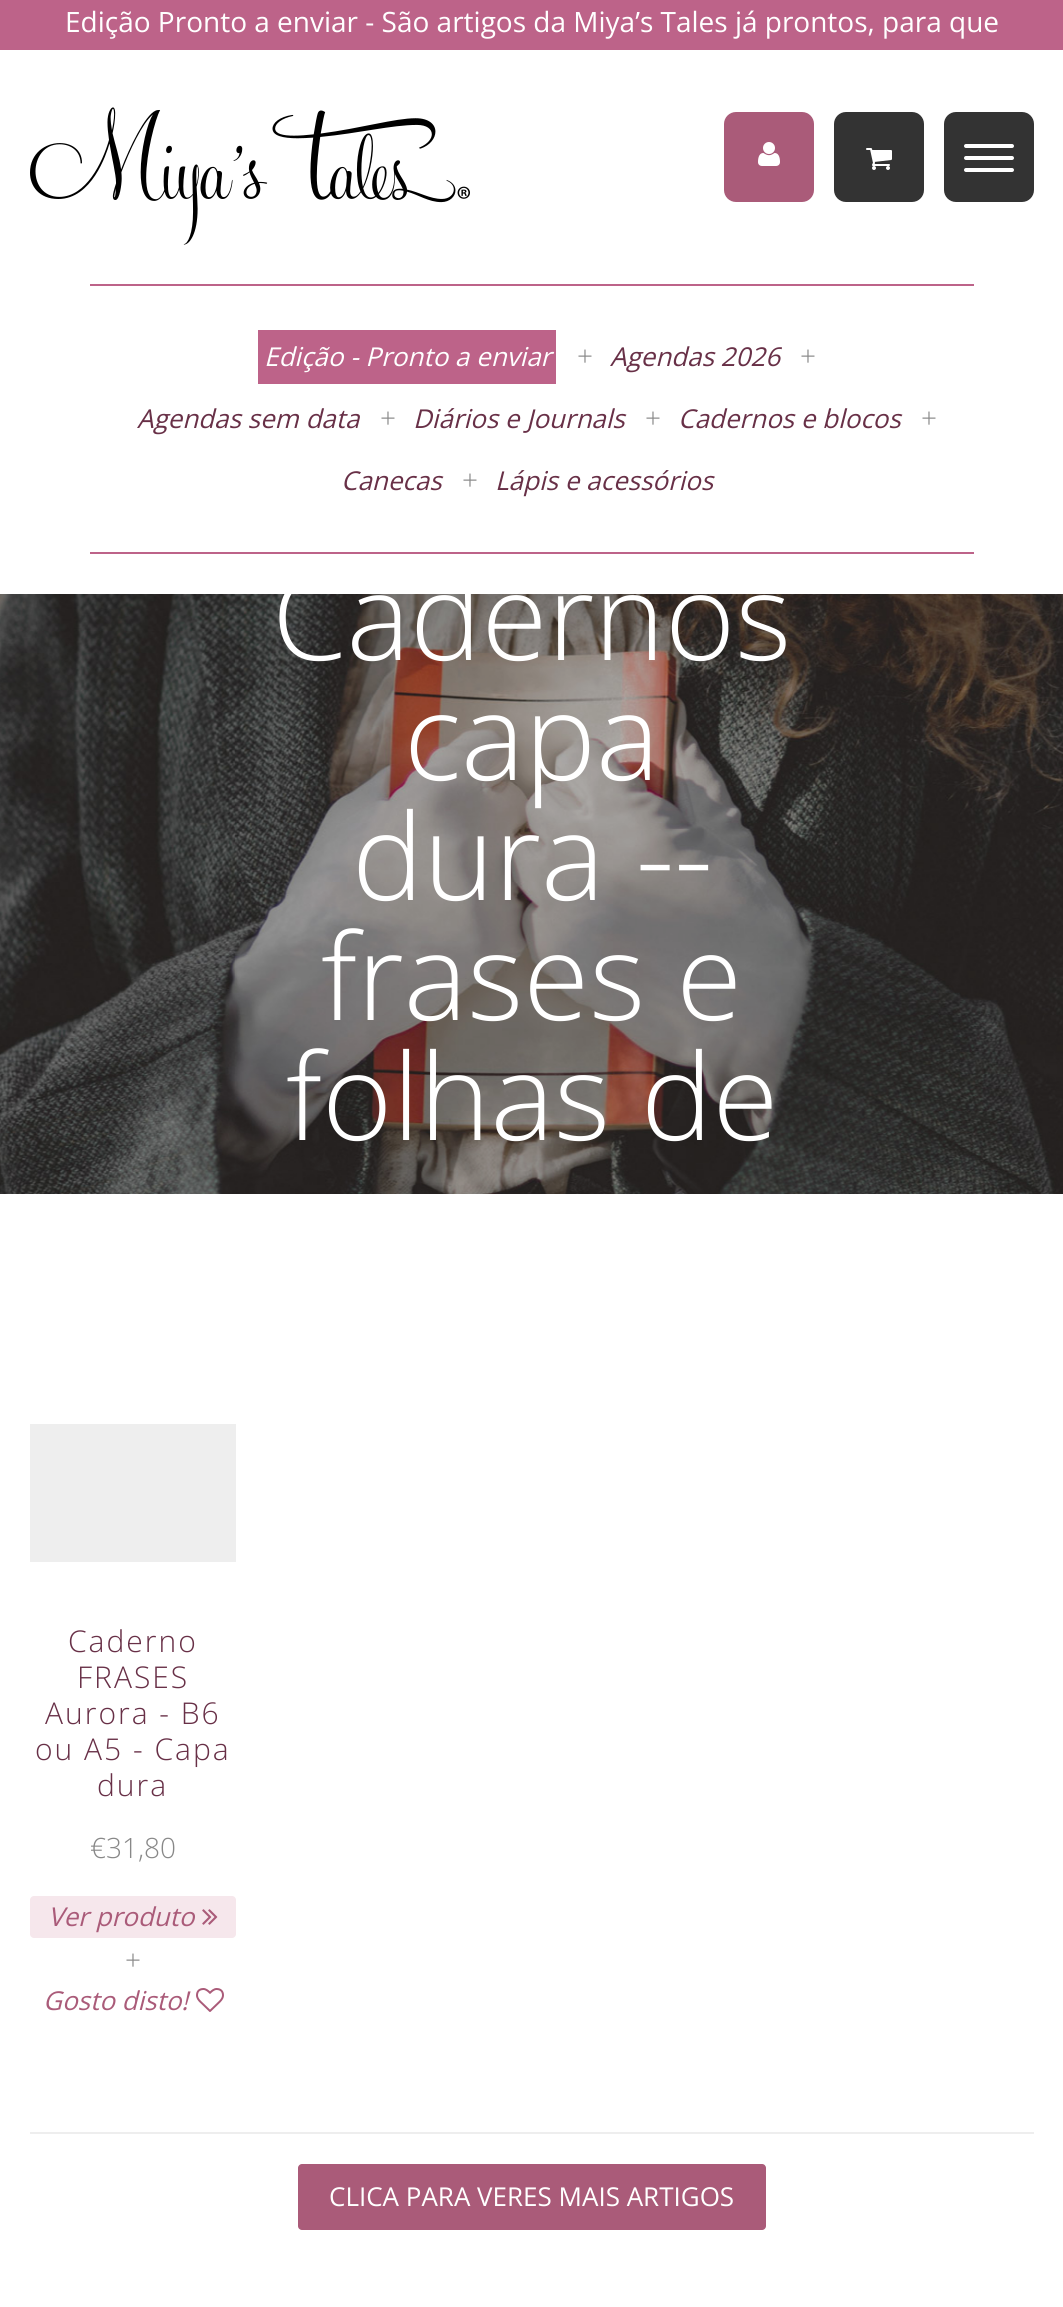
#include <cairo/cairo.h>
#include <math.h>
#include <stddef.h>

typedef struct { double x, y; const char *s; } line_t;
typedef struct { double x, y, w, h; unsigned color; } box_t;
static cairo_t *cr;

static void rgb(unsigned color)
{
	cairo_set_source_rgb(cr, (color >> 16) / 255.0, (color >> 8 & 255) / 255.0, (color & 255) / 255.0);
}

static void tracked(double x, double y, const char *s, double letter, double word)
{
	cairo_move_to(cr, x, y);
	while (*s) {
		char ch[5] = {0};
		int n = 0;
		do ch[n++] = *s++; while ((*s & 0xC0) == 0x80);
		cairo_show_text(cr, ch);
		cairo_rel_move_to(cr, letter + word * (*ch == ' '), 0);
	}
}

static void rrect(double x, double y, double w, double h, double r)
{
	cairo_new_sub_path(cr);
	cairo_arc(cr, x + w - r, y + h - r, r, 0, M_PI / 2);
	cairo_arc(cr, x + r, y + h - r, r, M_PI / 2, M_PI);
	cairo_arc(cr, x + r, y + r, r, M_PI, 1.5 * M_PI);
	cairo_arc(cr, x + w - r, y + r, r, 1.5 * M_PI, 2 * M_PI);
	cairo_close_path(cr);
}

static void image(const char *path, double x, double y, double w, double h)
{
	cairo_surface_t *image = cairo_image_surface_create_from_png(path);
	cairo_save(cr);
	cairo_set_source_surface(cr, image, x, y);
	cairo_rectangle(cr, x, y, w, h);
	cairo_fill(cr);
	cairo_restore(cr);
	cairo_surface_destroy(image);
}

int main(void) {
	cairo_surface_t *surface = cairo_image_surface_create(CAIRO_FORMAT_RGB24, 1063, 2307);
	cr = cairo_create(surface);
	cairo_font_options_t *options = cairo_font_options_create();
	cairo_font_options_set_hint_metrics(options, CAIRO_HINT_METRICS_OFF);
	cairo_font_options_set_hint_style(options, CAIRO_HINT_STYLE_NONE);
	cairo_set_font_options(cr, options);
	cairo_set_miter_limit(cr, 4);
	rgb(0xffffff);
	cairo_paint(cr);
	rgb(0xbd6389);
	cairo_rectangle(cr, 0, 0, 1063, 50);
	cairo_fill(cr);
	image("img/1.png", 30, 107, 440, 138);
	rgb(0xaa5b79);
	rrect(724, 112, 90, 90, 12);
	cairo_fill(cr);
	image("img/2.png", 758, 142, 22, 24);
	rgb(0x333333);
	rrect(834, 112, 90, 90, 12);
	cairo_fill(cr);
	image("img/3.png", 866, 148, 26, 22);
	rrect(944, 112, 90, 90, 12);
	cairo_fill(cr);
	rgb(0xffffff);
	rrect(964, 144, 50, 4, 2);
	cairo_fill(cr);
	rrect(964, 156, 50, 4, 2);
	cairo_fill(cr);
	rrect(964, 168, 50, 4, 2);
	cairo_fill(cr);
	{
		static const box_t items[] = {
			{90, 284, 884, 2, 0xbd6389},
			{90, 552, 884, 2, 0xbd6389},
			{258, 330, 298, 54, 0xbd6389},
		};
		for (size_t i = 0; i < sizeof items / sizeof *items; i++) {
			rgb(items[i].color);
			cairo_rectangle(cr, items[i].x, items[i].y, items[i].w, items[i].h);
			cairo_fill(cr);
		}
	}
	image("img/4.png", 0, 594, 1063, 600);
	rgb(0xeeeeee);
	cairo_rectangle(cr, 30, 1424, 206, 138);
	cairo_fill(cr);
	rgb(0xf6e7ec);
	rrect(30, 1896, 206, 42, 4);
	cairo_fill(cr);
	image("img/5.png", 202, 1909, 16, 16);
	image("img/6.png", 196, 1988, 28, 24);
	rgb(0xeeeeee);
	cairo_rectangle(cr, 30, 2132, 1004, 2);
	cairo_fill(cr);
	rgb(0xaa5b79);
	rrect(298, 2164, 468, 66, 4);
	cairo_fill(cr);
	cairo_select_font_face(cr, "Open Sans", CAIRO_FONT_SLANT_NORMAL, CAIRO_FONT_WEIGHT_NORMAL);
	cairo_set_font_size(cr, 28);
	rgb(0xffffff);
	cairo_move_to(cr, 65, 32);
	cairo_show_text(cr, "Edição Pronto a enviar - São artigos da Miya’s Tales já prontos, para que");
	cairo_select_font_face(cr, "Open Sans", CAIRO_FONT_SLANT_ITALIC, CAIRO_FONT_WEIGHT_NORMAL);
	cairo_set_font_size(cr, 26);
	cairo_move_to(cr, 264, 366);
	cairo_show_text(cr, "Edição - Pronto a enviar");
	cairo_select_font_face(cr, "Open Sans Light", CAIRO_FONT_SLANT_NORMAL, CAIRO_FONT_WEIGHT_NORMAL);
	cairo_set_font_size(cr, 28);
	rgb(0x888888);
	cairo_move_to(cr, 577, 366);
	cairo_show_text(cr, "+");
	cairo_select_font_face(cr, "Open Sans", CAIRO_FONT_SLANT_ITALIC, CAIRO_FONT_WEIGHT_NORMAL);
	cairo_set_font_size(cr, 26);
	rgb(0x683047);
	cairo_move_to(cr, 610, 366);
	cairo_show_text(cr, "Agendas 2026");
	cairo_select_font_face(cr, "Open Sans Light", CAIRO_FONT_SLANT_NORMAL, CAIRO_FONT_WEIGHT_NORMAL);
	cairo_set_font_size(cr, 28);
	rgb(0x888888);
	cairo_move_to(cr, 800, 366);
	cairo_show_text(cr, "+");
	cairo_select_font_face(cr, "Open Sans", CAIRO_FONT_SLANT_ITALIC, CAIRO_FONT_WEIGHT_NORMAL);
	cairo_set_font_size(cr, 26);
	rgb(0x683047);
	cairo_move_to(cr, 137, 428);
	cairo_show_text(cr, "Agendas sem data");
	cairo_select_font_face(cr, "Open Sans Light", CAIRO_FONT_SLANT_NORMAL, CAIRO_FONT_WEIGHT_NORMAL);
	cairo_set_font_size(cr, 28);
	rgb(0x888888);
	cairo_move_to(cr, 380, 428);
	cairo_show_text(cr, "+");
	cairo_select_font_face(cr, "Open Sans", CAIRO_FONT_SLANT_ITALIC, CAIRO_FONT_WEIGHT_NORMAL);
	cairo_set_font_size(cr, 26);
	rgb(0x683047);
	cairo_move_to(cr, 413, 428);
	cairo_show_text(cr, "Diários e Journals");
	cairo_select_font_face(cr, "Open Sans Light", CAIRO_FONT_SLANT_NORMAL, CAIRO_FONT_WEIGHT_NORMAL);
	cairo_set_font_size(cr, 28);
	rgb(0x888888);
	cairo_move_to(cr, 645, 428);
	cairo_show_text(cr, "+");
	cairo_select_font_face(cr, "Open Sans", CAIRO_FONT_SLANT_ITALIC, CAIRO_FONT_WEIGHT_NORMAL);
	cairo_set_font_size(cr, 26);
	rgb(0x683047);
	cairo_move_to(cr, 678, 428);
	cairo_show_text(cr, "Cadernos e blocos");
	cairo_select_font_face(cr, "Open Sans Light", CAIRO_FONT_SLANT_NORMAL, CAIRO_FONT_WEIGHT_NORMAL);
	cairo_set_font_size(cr, 28);
	rgb(0x888888);
	cairo_move_to(cr, 921, 428);
	cairo_show_text(cr, "+");
	cairo_select_font_face(cr, "Open Sans", CAIRO_FONT_SLANT_ITALIC, CAIRO_FONT_WEIGHT_NORMAL);
	cairo_set_font_size(cr, 26);
	rgb(0x683047);
	cairo_move_to(cr, 341, 490);
	cairo_show_text(cr, "Canecas");
	cairo_select_font_face(cr, "Open Sans Light", CAIRO_FONT_SLANT_NORMAL, CAIRO_FONT_WEIGHT_NORMAL);
	cairo_set_font_size(cr, 28);
	rgb(0x888888);
	cairo_move_to(cr, 462, 490);
	cairo_show_text(cr, "+");
	cairo_select_font_face(cr, "Open Sans", CAIRO_FONT_SLANT_ITALIC, CAIRO_FONT_WEIGHT_NORMAL);
	cairo_set_font_size(cr, 26);
	rgb(0x683047);
	cairo_move_to(cr, 495, 490);
	cairo_show_text(cr, "Lápis e acessórios");
	cairo_save(cr);
	cairo_rectangle(cr, 0, 594, 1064, 600);
	cairo_clip(cr);
	cairo_select_font_face(cr, "Open Sans Light", CAIRO_FONT_SLANT_NORMAL, CAIRO_FONT_WEIGHT_NORMAL);
	cairo_set_font_size(cr, 120);
	rgb(0xffffff);
	cairo_move_to(cr, 272, 660);
	cairo_show_text(cr, "Cadernos");
	cairo_restore(cr);
	cairo_select_font_face(cr, "Open Sans Light", CAIRO_FONT_SLANT_NORMAL, CAIRO_FONT_WEIGHT_NORMAL);
	cairo_set_font_size(cr, 120);
	rgb(0xffffff);
	{
		static const line_t items[] = {
			{404, 780, "capa"},
			{352, 900, "dura --"},
			{321, 1020, "frases e"},
			{286, 1140, "folhas de"},
		};
		for (size_t i = 0; i < sizeof items / sizeof *items; i++) {
			cairo_move_to(cr, items[i].x, items[i].y);
			cairo_show_text(cr, items[i].s);
		}
	}
	cairo_set_font_size(cr, 30);
	rgb(0x683047);
	{
		static const line_t items[] = {
			{68, 1652, "Caderno"},
			{77, 1688, "FRASES"},
			{45, 1724, "Aurora - B6"},
			{35, 1760, "ou A5 - Capa"},
			{97, 1796, "dura"},
		};
		for (size_t i = 0; i < sizeof items / sizeof *items; i++) {
			tracked(items[i].x, items[i].y, items[i].s, 2, 0);
		}
	}
	cairo_set_font_size(cr, 28);
	rgb(0x888888);
	cairo_move_to(cr, 90, 1858);
	cairo_show_text(cr, "€31,80");
	cairo_select_font_face(cr, "Open Sans", CAIRO_FONT_SLANT_ITALIC, CAIRO_FONT_WEIGHT_NORMAL);
	cairo_set_font_size(cr, 26);
	rgb(0xaa5b79);
	cairo_move_to(cr, 48, 1926);
	cairo_show_text(cr, "Ver produto");
	cairo_select_font_face(cr, "Open Sans Light", CAIRO_FONT_SLANT_NORMAL, CAIRO_FONT_WEIGHT_NORMAL);
	cairo_set_font_size(cr, 28);
	rgb(0x888888);
	cairo_move_to(cr, 125, 1970);
	cairo_show_text(cr, "+");
	cairo_select_font_face(cr, "Open Sans", CAIRO_FONT_SLANT_ITALIC, CAIRO_FONT_WEIGHT_NORMAL);
	cairo_set_font_size(cr, 26);
	rgb(0xaa5b79);
	cairo_move_to(cr, 43, 2010);
	cairo_show_text(cr, "Gosto disto!");
	cairo_select_font_face(cr, "Open Sans", CAIRO_FONT_SLANT_NORMAL, CAIRO_FONT_WEIGHT_NORMAL);
	rgb(0xffffff);
	cairo_move_to(cr, 329, 2206);
	cairo_show_text(cr, "CLICA PARA VERES MAIS ARTIGOS");
	cairo_surface_write_to_png(surface, "page.png");
	cairo_font_options_destroy(options);
	cairo_destroy(cr);
	cairo_surface_destroy(surface);
	return 0;
}
